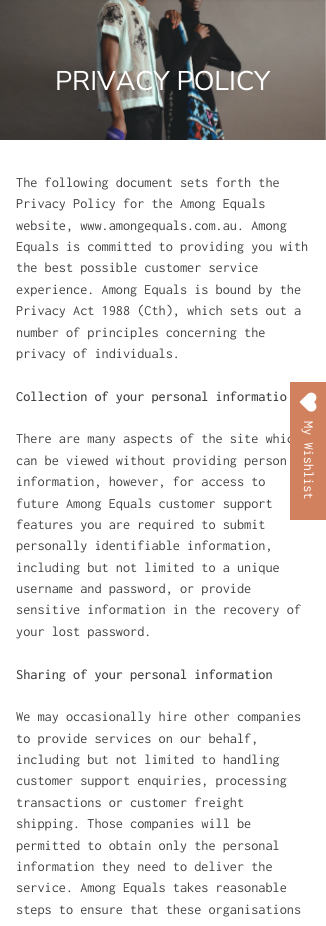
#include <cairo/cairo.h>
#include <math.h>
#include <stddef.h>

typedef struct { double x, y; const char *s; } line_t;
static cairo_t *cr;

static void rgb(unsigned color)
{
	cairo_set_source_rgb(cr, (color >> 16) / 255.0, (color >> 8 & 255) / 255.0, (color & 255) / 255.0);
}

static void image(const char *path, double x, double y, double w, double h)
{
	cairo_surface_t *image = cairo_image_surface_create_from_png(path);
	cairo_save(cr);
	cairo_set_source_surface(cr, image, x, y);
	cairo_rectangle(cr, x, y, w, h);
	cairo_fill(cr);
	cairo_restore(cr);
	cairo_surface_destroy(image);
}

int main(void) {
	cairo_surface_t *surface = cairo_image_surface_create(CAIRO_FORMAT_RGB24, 326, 926);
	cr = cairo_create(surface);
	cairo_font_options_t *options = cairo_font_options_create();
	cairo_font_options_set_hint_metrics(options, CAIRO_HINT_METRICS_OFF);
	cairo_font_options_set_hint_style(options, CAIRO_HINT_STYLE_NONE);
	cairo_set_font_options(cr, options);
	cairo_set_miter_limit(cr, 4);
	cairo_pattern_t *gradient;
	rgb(0xffffff);
	cairo_paint(cr);
	image("img/1.png", 0, 0, 326, 140);
	gradient = cairo_pattern_create_linear(163, -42, 163, 7);
	cairo_pattern_add_color_stop_rgba(gradient, 0, 0, 0, 0, 0.2);
	cairo_pattern_add_color_stop_rgba(gradient, 1, 0, 0, 0, 0);
	cairo_set_source(cr, gradient);
	cairo_pattern_destroy(gradient);
	cairo_rectangle(cr, 88, 0, 238, 2);
	cairo_fill(cr);
	cairo_select_font_face(cr, "Nunito Sans", CAIRO_FONT_SLANT_NORMAL, CAIRO_FONT_WEIGHT_NORMAL);
	cairo_set_font_size(cr, 27);
	rgb(0xffffff);
	cairo_move_to(cr, 55, 90);
	cairo_show_text(cr, "PRIVACY POLICY");
	cairo_select_font_face(cr, "Inconsolata", CAIRO_FONT_SLANT_NORMAL, CAIRO_FONT_WEIGHT_NORMAL);
	cairo_set_font_size(cr, 14.25);
	rgb(0x424242);
	{
		static const line_t items[] = {
			{16, 187, "The following document sets forth the"},
			{16, 208, "Privacy Policy for the Among Equals"},
			{16, 230, "website, www.amongequals.com.au. Among"},
			{16, 251, "Equals is committed to providing you with"},
			{16, 272, "the best possible customer service"},
			{16, 294, "experience. Among Equals is bound by the"},
			{16, 315, "Privacy Act 1988 (Cth), which sets out a"},
			{16, 337, "number of principles concerning the"},
			{16, 358, "privacy of individuals."},
		};
		for (size_t i = 0; i < sizeof items / sizeof *items; i++) {
			cairo_move_to(cr, items[i].x, items[i].y);
			cairo_show_text(cr, items[i].s);
		}
	}
	cairo_select_font_face(cr, "Inconsolata Medium", CAIRO_FONT_SLANT_NORMAL, CAIRO_FONT_WEIGHT_NORMAL);
	cairo_move_to(cr, 16, 401);
	cairo_show_text(cr, "Collection of your personal informatio");
	cairo_select_font_face(cr, "Inconsolata", CAIRO_FONT_SLANT_NORMAL, CAIRO_FONT_WEIGHT_NORMAL);
	{
		static const line_t items[] = {
			{16, 443, "There are many aspects of the site whic"},
			{16, 465, "can be viewed without providing person"},
			{16, 486, "information, however, for access to"},
			{16, 508, "future Among Equals customer support"},
			{16, 529, "features you are required to submit"},
			{16, 550, "personally identifiable information,"},
			{16, 572, "including but not limited to a unique"},
			{16, 593, "username and password, or provide"},
			{16, 614, "sensitive information in the recovery of"},
			{16, 636, "your lost password."},
		};
		for (size_t i = 0; i < sizeof items / sizeof *items; i++) {
			cairo_move_to(cr, items[i].x, items[i].y);
			cairo_show_text(cr, items[i].s);
		}
	}
	cairo_select_font_face(cr, "Inconsolata Medium", CAIRO_FONT_SLANT_NORMAL, CAIRO_FONT_WEIGHT_NORMAL);
	cairo_move_to(cr, 16, 679);
	cairo_show_text(cr, "Sharing of your personal information");
	cairo_select_font_face(cr, "Inconsolata", CAIRO_FONT_SLANT_NORMAL, CAIRO_FONT_WEIGHT_NORMAL);
	{
		static const line_t items[] = {
			{16, 721, "We may occasionally hire other companies"},
			{16, 743, "to provide services on our behalf,"},
			{16, 764, "including but not limited to handling"},
			{16, 785, "customer support enquiries, processing"},
			{16, 807, "transactions or customer freight"},
			{16, 828, "shipping. Those companies will be"},
			{16, 850, "permitted to obtain only the personal"},
			{16, 871, "information they need to deliver the"},
			{16, 892, "service. Among Equals takes reasonable"},
			{16, 914, "steps to ensure that these organisations"},
		};
		for (size_t i = 0; i < sizeof items / sizeof *items; i++) {
			cairo_move_to(cr, items[i].x, items[i].y);
			cairo_show_text(cr, items[i].s);
		}
	}
	rgb(0xd2815f);
	cairo_rectangle(cr, 290, 382, 36, 138);
	cairo_fill(cr);
	image("img/2.png", 299, 392, 18, 20);
	rgb(0xffffff);
	cairo_save(cr);
	cairo_translate(cr, 304, 421);
	cairo_rotate(cr, 90 * M_PI / 180);
	cairo_move_to(cr, 0, 0);
	cairo_show_text(cr, "My Wishlist");
	cairo_restore(cr);
	cairo_surface_write_to_png(surface, "page.png");
	cairo_font_options_destroy(options);
	cairo_destroy(cr);
	cairo_surface_destroy(surface);
	return 0;
}
